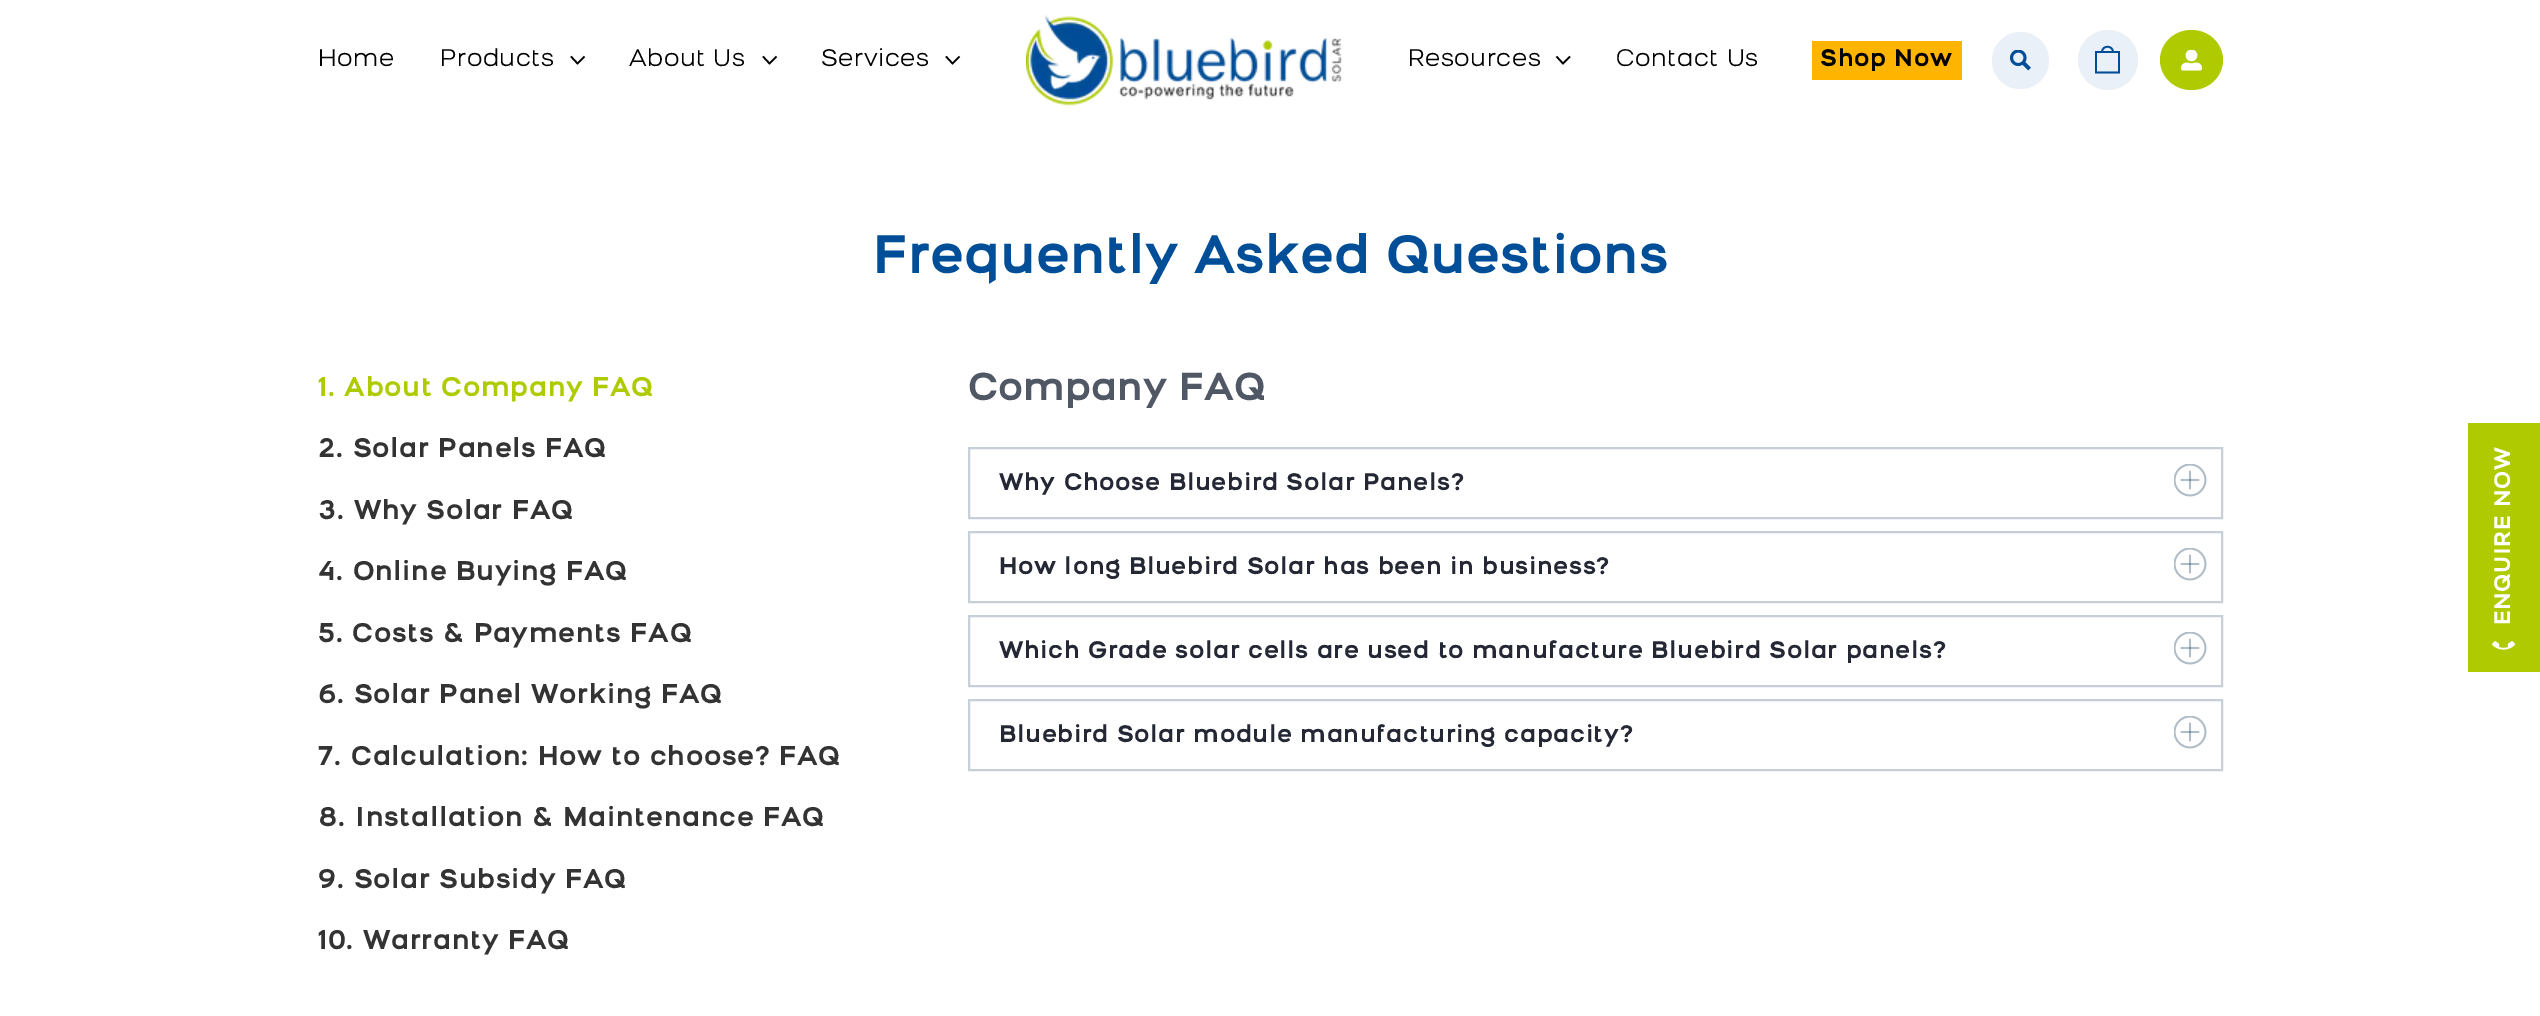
%!PS
<< /PageSize [2540 1016] >> setpagedevice
/mt/moveto load def
/li/lineto load def
/ct/curveto load def
/cp/closepath load def
/fl/fill load def
/st/stroke load def
/gs/gsave load def
/gr/grestore load def
/lw/setlinewidth load def
/co { dup -16 bitshift 255 div exch dup -8 bitshift 255 and 255 div exch 255 and 255 div setrgbcolor } def
/fn { [ exch dup neg 0 0 3 -1 roll 0 0 ] selectfont } def
/tx { co fn moveto show } def
/bx { co rectfill } def
/ci { newpath 0 360 arc closepath } def
/im { 5 dict begin { /h /w /y /x /name } { exch def } forall
  gsave x y translate w h scale
  w h 8 [w 0 0 h 0 0] name (r) file false 3 colorimage grestore end } def
0 1016 translate 1 -1 scale
4 setmiterlimit
0 0 2540 1016 16#FFFFFF bx
16#000000 co
1.6 lw
571 56.5 mt 577.5 63.5 li 584.5 56.5 li st
763 56.5 mt 769.5 63.5 li 776.5 56.5 li st
946 56.5 mt 952.5 63.5 li 959.5 56.5 li st
(media/1.raw) 1026 15 316 91 im
1556.5 56.5 mt 1563 63.5 li 1570 56.5 li st
1812 41 150 39 16#FFB400 bx
16#EAF0F7 co
2020.5 60.5 28.5 ci fl
(media/2.raw) 2010 50 21 21 im
2108 60 30 ci fl
16#004E97 co
1.7 lw
2096 52 mt 2119 52 li 2119 72.5 li 2096 72.5 li cp 2102 52 mt 2102 45 2113 45 2113 52 ct st
16#AFCB00 co
2191.5 30 mt 2209 30 2223 43.5 2223 60 ct 2223 76.5 2209 90 2191.5 90 ct 2174 90 2160 76.5 2160 60 ct 2160 43.5 2174 30 2191.5 30 ct cp fl
(media/3.raw) 2181 50 21 21 im
16#C7D0D8 co
2 lw
969 448 1253 70 rectstroke
(media/4.raw) 2174 464 33 33 im
969 532 1253 70 rectstroke
(media/4.raw) 2174 548 33 33 im
969 616 1253 70 rectstroke
(media/4.raw) 2174 632 33 33 im
969 700 1253 70 rectstroke
(media/4.raw) 2174 716 33 33 im
2468 423 72 249 16#AFCB00 bx
(media/5.raw) 2492 641 24 9 im
/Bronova-Regular 24 fn
16#000000 co
318 66 mt .6 0 (Home) ashow
440 66 mt .6 0 (Products) ashow
629 66 mt .6 0 (About Us) ashow
821 66 mt .6 0 (Services) ashow
1408 66 mt .6 0 (Resources) ashow
1616 66 mt .6 0 (Contact Us) ashow
/Bronova-Bold 24 fn
1820 66 mt .6 0 (Shop Now) ashow
(Frequently Asked Questions) 873 273 /Bronova-Bold 54 16#004E97 tx
/Bronova-Bold 27 fn
16#AFCB00 co
318 396 mt .6 0 (1. About Company FAQ) ashow
16#333333 co
318 457 mt .6 0 (2. Solar Panels FAQ) ashow
318 519 mt .6 0 (3. Why Solar FAQ) ashow
318 580 mt .6 0 (4. Online Buying FAQ) ashow
318 642 mt .6 0 (5. Costs & Payments FAQ) ashow
318 703 mt .6 0 (6. Solar Panel Working FAQ) ashow
318 765 mt .6 0 (7. Calculation: How to choose? FAQ) ashow
318 826 mt .6 0 (8. Installation & Maintenance FAQ) ashow
318 888 mt .6 0 (9. Solar Subsidy FAQ) ashow
318 949 mt .6 0 (10. Warranty FAQ) ashow
(Company FAQ) 968 400 /Bronova-Bold 39 16#515865 tx
/Bronova-Bold 24 fn
16#242734 co
999 490 mt .6 0 (Why Choose Bluebird Solar Panels?) ashow
999 574 mt .6 0 (How long Bluebird Solar has been in business?) ashow
999 658 mt .6 0 (Which Grade solar cells are used to manufacture Bluebird Solar panels?) ashow
999 742 mt .6 0 (Bluebird Solar module manufacturing capacity?) ashow
/Bronova-Bold 22.5 fn
16#FFFFFF co
gs 2510 625 translate -90 rotate 0 0 mt .6 0 (ENQUIRE NOW) ashow gr
showpage
